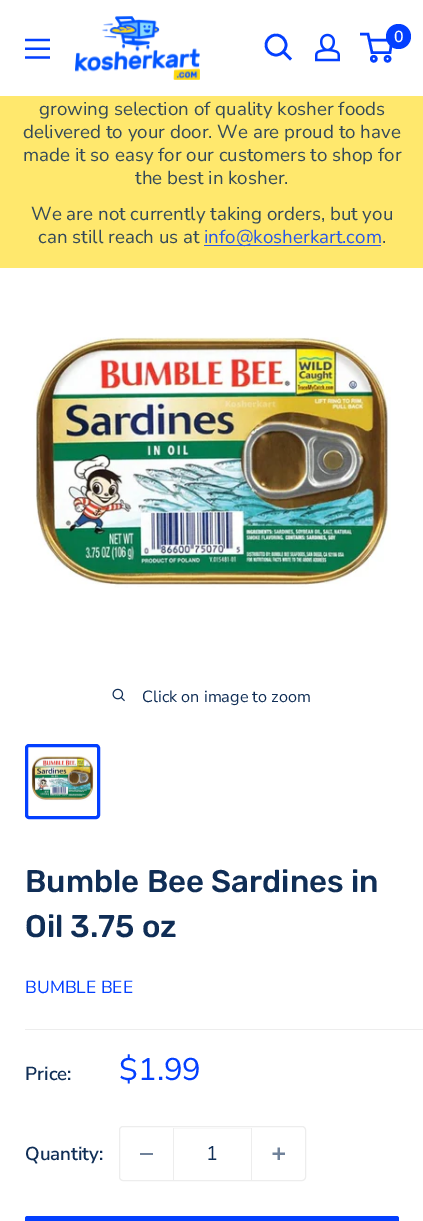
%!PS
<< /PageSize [423 1221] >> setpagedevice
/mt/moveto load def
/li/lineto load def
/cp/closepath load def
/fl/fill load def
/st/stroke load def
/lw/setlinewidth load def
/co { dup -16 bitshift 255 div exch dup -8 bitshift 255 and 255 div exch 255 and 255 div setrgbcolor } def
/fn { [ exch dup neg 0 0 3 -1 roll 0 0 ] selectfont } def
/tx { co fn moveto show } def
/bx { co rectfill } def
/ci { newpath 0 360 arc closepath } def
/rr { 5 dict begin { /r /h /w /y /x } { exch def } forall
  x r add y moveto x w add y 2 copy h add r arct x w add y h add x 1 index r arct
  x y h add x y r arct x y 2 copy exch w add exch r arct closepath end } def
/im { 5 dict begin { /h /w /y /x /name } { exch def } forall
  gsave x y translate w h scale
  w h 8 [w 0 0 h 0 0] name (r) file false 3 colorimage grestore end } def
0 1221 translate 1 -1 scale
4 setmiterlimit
0 0 423 1221 16#FFE86D bx
0 0 423 96 16#FFFFFF bx
(media/1.raw) 75 16 125 64 im
16#033FFF co
2.6 lw
2 setlinecap
290 58.5 mt 283.5 52 li st
0 setlinecap
276 45 10 ci st
(media/2.raw) 315 33 25 29 im
2.5 lw
373.8 58.8 2.5 ci st
387.5 58.8 2.5 ci st
369 40 mt 392 40 li 390 52.5 li 372 52.5 li 368 34 li 360 34 li st
398.5 36.5 12.5 ci fl
(media/3.raw) 25 38 25 21 im
204 245 177 1 16#2958E9 bx
0 268 423 591 16#FFFFFF bx
(media/4.raw) 33 337 358 251 im
(media/5.raw) 112 688 13 14 im
16#033FFF co
3 lw
26.5 745.5 72 72 2.5 rr st
(media/6.raw) 30 756 64 45 im
16#FFFFFF co
0 859 mt 0 860 li 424 860 li 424 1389 li 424 859 li cp fl
0 860 423 361 16#FFFFFF bx
25 1029 398 1 16#EDEDED bx
1 lw
119.5 1126.5 186 54 3.5 rr st
140 1153 13 2 16#70829A bx
174 1128 77 1 16#F8F8F8 bx
251 1128 1 52 16#EDEDED bx
173 1128 1 52 16#EDEDED bx
(media/7.raw) 272 1147 13 13 im
16#033FFF co
25 1216 374 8 2.5 rr fl
(0) 394 42 /NunitoSans-SemiBold 16 16#FFFFFF tx
(growing selection of quality kosher foods) 39 115 /NunitoSans-ExtraLight 18.75 16#344A59 tx
(delivered to your door. We are proud to have) 23 138 /NunitoSans-ExtraLight 18.75 16#344A59 tx
(made it so easy for our customers to shop for) 23 161 /NunitoSans-ExtraLight 18.75 16#344A59 tx
(the best in kosher.) 135 184 /NunitoSans-ExtraLight 18.75 16#344A59 tx
(We are not currently taking orders, but you) 31 220 /NunitoSans-ExtraLight 18.75 16#344A59 tx
(can still reach us at) 38 243 /NunitoSans-ExtraLight 18.75 16#344A59 tx
(info@kosherkart.com) 204 243 /NunitoSans-ExtraLight 18.75 16#2958E9 tx
(.) 382 243 /NunitoSans-ExtraLight 18.75 16#344A59 tx
(Click on image to zoom) 142 702 /NunitoSans-ExtraLight 16.25 16#102E56 tx
(Bumble Bee Sardines in) 25 892 /Rubik-Medium 31.25 16#102E56 tx
(Oil 3.75 oz) 25 937 /Rubik-Medium 31.25 16#102E56 tx
(BUMBLE BEE) 25 993 /NunitoSans-ExtraLight 17.5 16#033FFF tx
(Price:) 25 1080 /NunitoSans-SemiBold 18.75 16#102E56 tx
($1.99) 119 1080 /NunitoSans-ExtraLight 31.25 16#033FFF tx
(Quantity:) 25 1160 /NunitoSans-SemiBold 18.75 16#102E56 tx
(1) 206 1160 /NunitoSans-ExtraLight 20 16#102E56 tx
showpage
